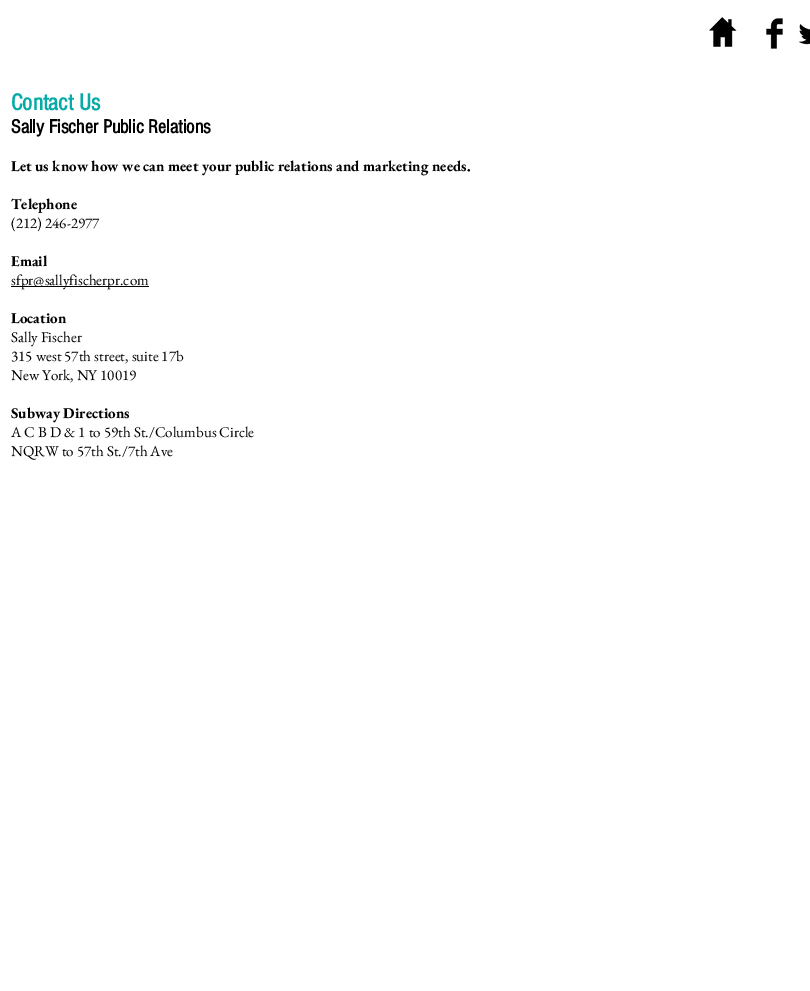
%!PS
<< /PageSize [810 991] >> setpagedevice
/co { dup -16 bitshift 255 div exch dup -8 bitshift 255 and 255 div exch 255 and 255 div setrgbcolor } def
/fn { [ exch dup neg 0 0 3 -1 roll 0 0 ] selectfont } def
/tx { co fn moveto show } def
/bx { co rectfill } def
/im { 5 dict begin { /h /w /y /x /name } { exch def } forall
  gsave x y translate w h scale
  w h 8 [w 0 0 h 0 0] name (r) file false 3 colorimage grestore end } def
0 991 translate 1 -1 scale
4 setmiterlimit
0 0 810 991 16#FFFFFF bx
(media/1.raw) 709 17 28 30 im
(media/2.raw) 766 18 17 31 im
(media/3.raw) 798 24 12 21 im
11 286 138 1 16#000000 bx
(Contact Us) 11 110 /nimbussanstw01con-Bold 24 16#06AAA7 tx
(Sally Fischer Public Relations) 11 133 /nimbussanstw01con-Bold 20 16#000000 tx
(Let us know how we can meet your public relations and marketing needs.) 11 171 /EBGaramond-Bold 15 16#000000 tx
(Telephone) 11 209 /EBGaramond-Bold 15 16#000000 tx
(\(212\) 246-2977) 11 228 /EBGaramond-Regular 15 16#000000 tx
(Email) 11 266 /EBGaramond-Bold 15 16#000000 tx
(sfpr@sallyfischerpr.com) 11 285 /EBGaramond-Regular 15 16#000000 tx
(Location) 11 323 /EBGaramond-Bold 15 16#000000 tx
(Sally Fischer) 11 342 /EBGaramond-Regular 15 16#000000 tx
(315 west 57th street, suite 17b) 11 361 /EBGaramond-Regular 15 16#000000 tx
(New York, NY 10019) 11 380 /EBGaramond-Regular 15 16#000000 tx
(Subway Directions) 11 418 /EBGaramond-Bold 15 16#000000 tx
(A C B D & 1 to 59th St./Columbus Circle) 11 437 /EBGaramond-Regular 15 16#000000 tx
(NQRW to 57th St./7th Ave) 11 456 /EBGaramond-Regular 15 16#000000 tx
showpage
